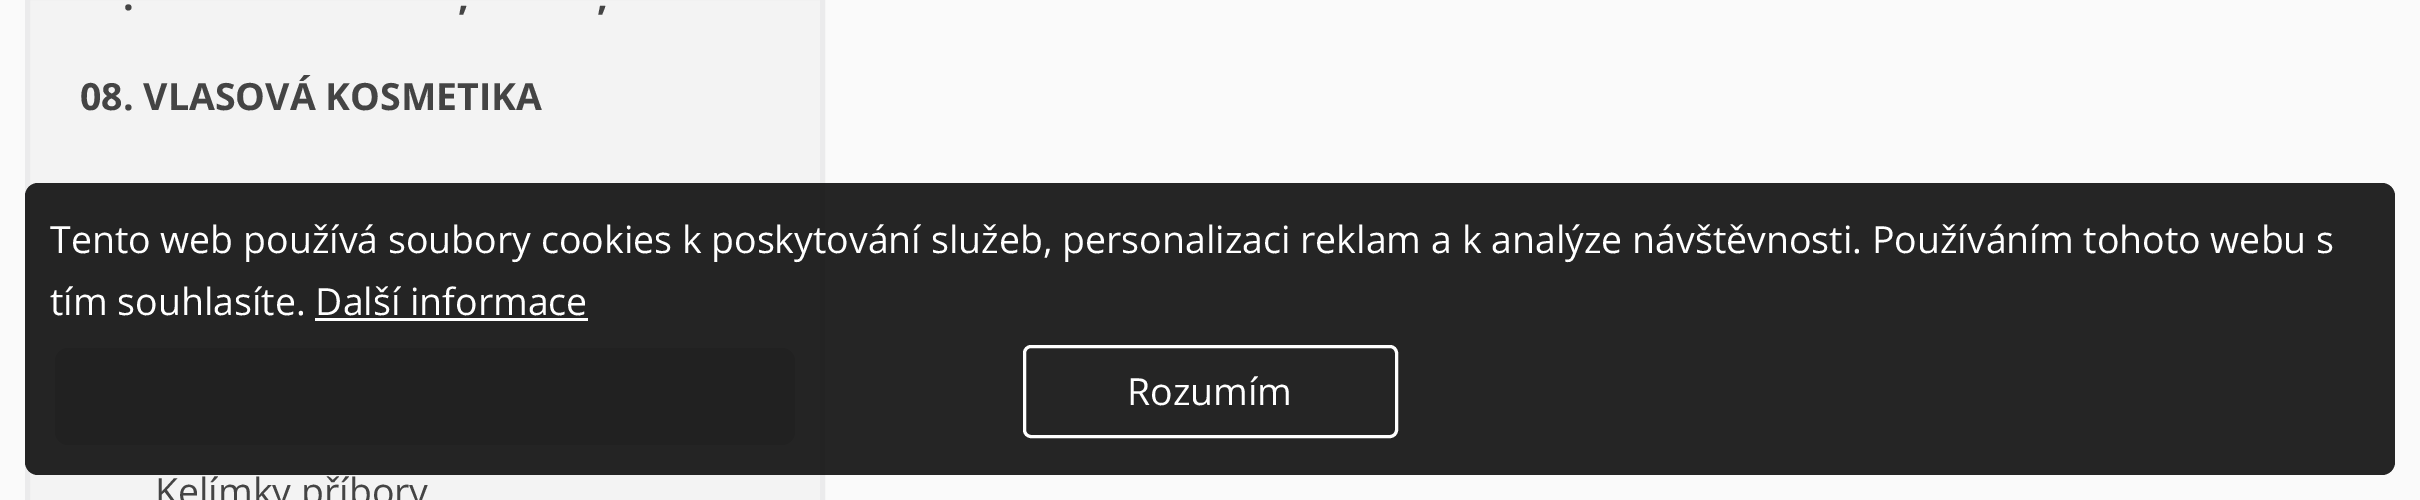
%!PS
<< /PageSize [2420 500] /PageUsesTransparency true >> setpagedevice
/mt/moveto load def
/li/lineto load def
/cp/closepath load def
/fl/fill load def
/st/stroke load def
/gs/gsave load def
/gr/grestore load def
/lw/setlinewidth load def
/co { dup -16 bitshift 255 div exch dup -8 bitshift 255 and 255 div exch 255 and 255 div setrgbcolor } def
/fn { [ exch dup neg 0 0 3 -1 roll 0 0 ] selectfont } def
/tx { co fn moveto show } def
/bx { co rectfill } def
/al { dup .setfillconstantalpha .setstrokeconstantalpha } def
/rr { 5 dict begin { /r /h /w /y /x } { exch def } forall
  x r add y moveto x w add y 2 copy h add r arct x w add y h add x 1 index r arct
  x y h add x y r arct x y 2 copy exch w add exch r arct closepath end } def
0 .pushpdf14devicefilter
0 500 translate 1 -1 scale
4 setmiterlimit
0 0 2420 500 16#FAFAFA bx
16#F3F3F3 co
27.5 -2.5 mt 822.5 -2.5 li 822.5 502.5 li 27.5 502.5 li cp gs fl gr
16#EBEBEC co
5 lw
st
16#DDDDDD co
55 348 740 97 13 rr fl
0.85 al
16#000000 co
25 183 2370 292 13 rr fl
1 al
315 318 273 3 16#FFFFFF bx
3 lw
1024.5 346.5 372 90 6.5 rr st
(.) 123 10 /OpenSans-Bold 37.5 16#444444 tx
(,) 458 10 /OpenSans-Bold 37.5 16#444444 tx
(,) 597 10 /OpenSans-Bold 37.5 16#444444 tx
(08. VLASOVÁ KOSMETIKA) 80 110 /OpenSans-Bold 37.5 16#444444 tx
(Kelímky,příbory) 155 505 /OpenSans-Regular 37.5 16#444444 tx
(Tento web používá soubory cookies k poskytování služeb, personalizaci reklam a k analýze návštěvnosti. Používáním tohoto webu s) 50 253 /OpenSans-Regular 37.5 16#FFFFFF tx
(tím souhlasíte. Další informace) 50 315 /OpenSans-Regular 37.5 16#FFFFFF tx
(Rozumím) 1127 405 /OpenSans-Regular 37.5 16#FFFFFF tx
.poppdf14devicefilter showpage
